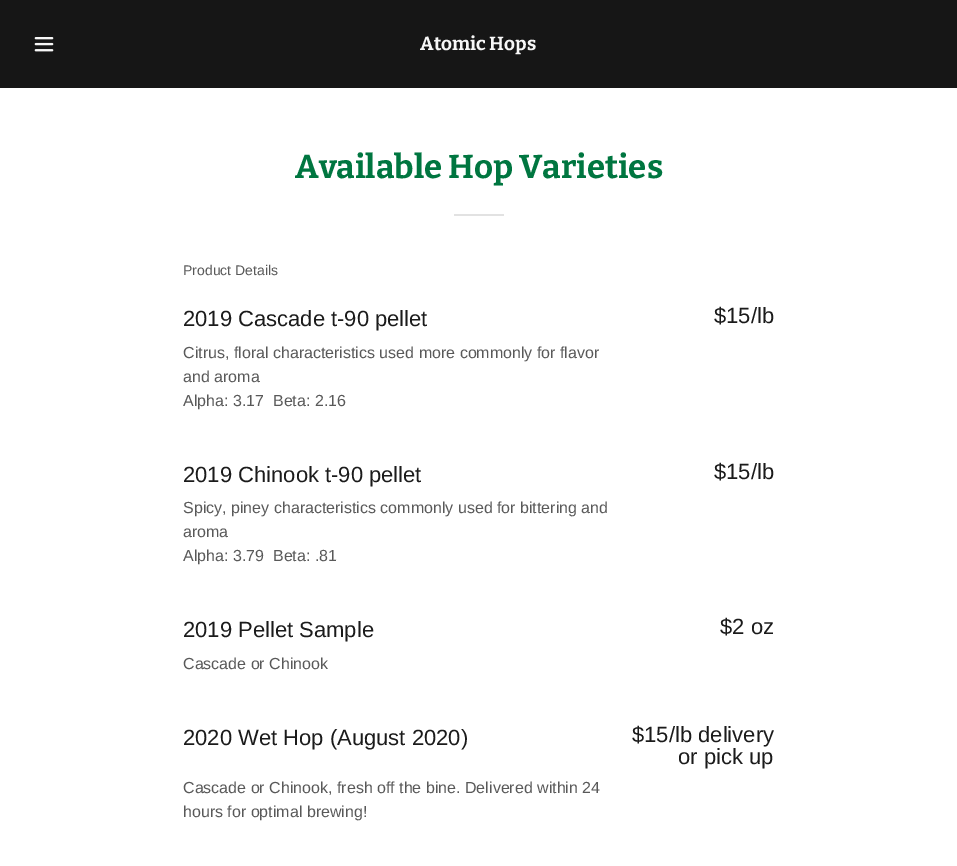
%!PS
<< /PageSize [957 866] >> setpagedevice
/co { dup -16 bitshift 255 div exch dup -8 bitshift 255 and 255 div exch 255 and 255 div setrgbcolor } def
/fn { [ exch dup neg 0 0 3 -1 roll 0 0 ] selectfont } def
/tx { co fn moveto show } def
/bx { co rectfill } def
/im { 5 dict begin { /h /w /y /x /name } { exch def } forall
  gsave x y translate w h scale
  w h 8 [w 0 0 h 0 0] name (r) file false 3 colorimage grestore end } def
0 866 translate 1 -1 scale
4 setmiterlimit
0 0 957 866 16#161616 bx
(media/1.raw) 34 37 20 15 im
0 88 957 778 16#FFFFFF bx
454 214 50 2 16#E2E2E2 bx
(Atomic Hops) 420 50 /Bitter-Thin 19 16#F7F7F7 tx
(Available Hop Varieties) 295 178 /Bitter-Thin 33 16#007640 tx
(Product Details) 183 275 /LiberationSans-Regular 14 16#595959 tx
(2019 Cascade t-90 pellet) 183 326 /LiberationSans-Regular 22 16#1B1B1B tx
($15/lb) 714 323 /LiberationSans-Regular 22 16#1B1B1B tx
(Citrus, floral characteristics used more commonly for flavor) 183 358 /LiberationSans-Regular 16 16#595959 tx
(and aroma) 183 382 /LiberationSans-Regular 16 16#595959 tx
(Alpha: 3.17  Beta: 2.16) 183 406 /LiberationSans-Regular 16 16#595959 tx
(2019 Chinook t-90 pellet) 183 482 /LiberationSans-Regular 22 16#1B1B1B tx
($15/lb) 714 479 /LiberationSans-Regular 22 16#1B1B1B tx
(Spicy, piney characteristics commonly used for bittering and) 183 513 /LiberationSans-Regular 16 16#595959 tx
(aroma) 183 537 /LiberationSans-Regular 16 16#595959 tx
(Alpha: 3.79  Beta: .81) 183 561 /LiberationSans-Regular 16 16#595959 tx
(2019 Pellet Sample) 183 637 /LiberationSans-Regular 22 16#1B1B1B tx
($2 oz) 720 634 /LiberationSans-Regular 22 16#1B1B1B tx
(Cascade or Chinook) 183 669 /LiberationSans-Regular 16 16#595959 tx
(2020 Wet Hop \(August 2020\)) 183 745 /LiberationSans-Regular 22 16#1B1B1B tx
($15/lb delivery) 632 742 /LiberationSans-Regular 22 16#1B1B1B tx
(or pick up) 678 764 /LiberationSans-Regular 22 16#1B1B1B tx
(Cascade or Chinook, fresh off the bine. Delivered within 24) 183 793 /LiberationSans-Regular 16 16#595959 tx
(hours for optimal brewing!) 183 817 /LiberationSans-Regular 16 16#595959 tx
showpage
